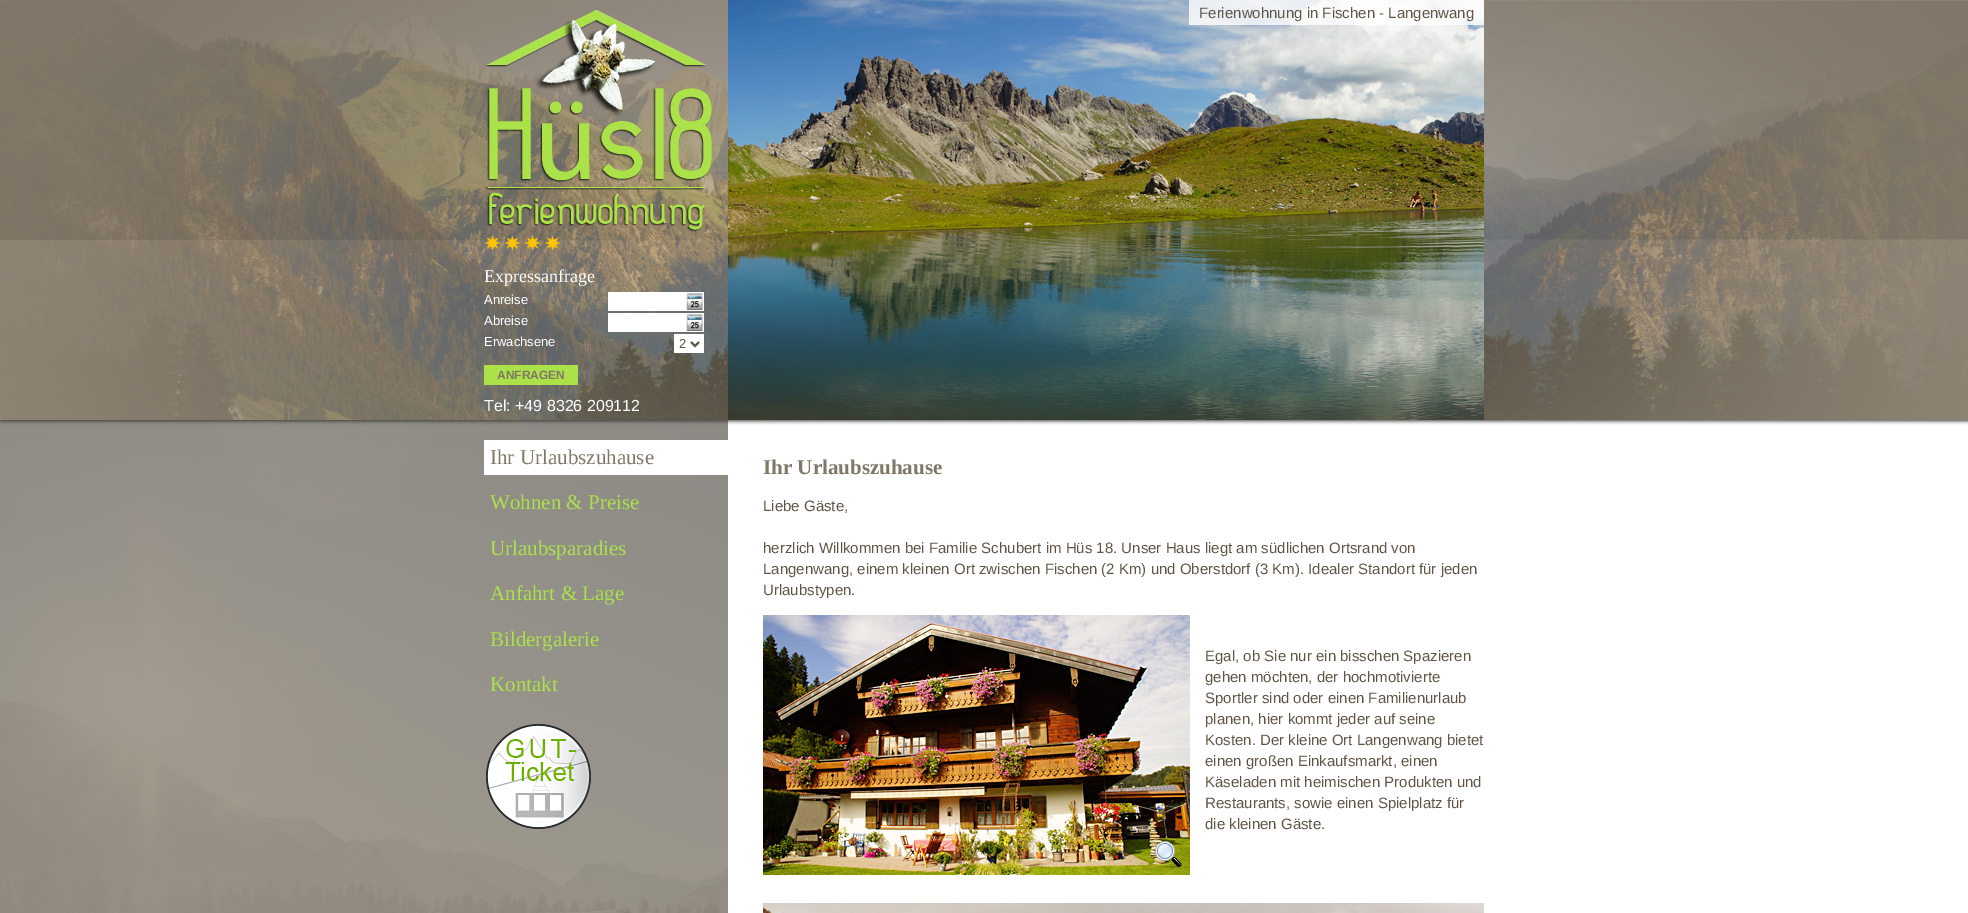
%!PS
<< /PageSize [1968 913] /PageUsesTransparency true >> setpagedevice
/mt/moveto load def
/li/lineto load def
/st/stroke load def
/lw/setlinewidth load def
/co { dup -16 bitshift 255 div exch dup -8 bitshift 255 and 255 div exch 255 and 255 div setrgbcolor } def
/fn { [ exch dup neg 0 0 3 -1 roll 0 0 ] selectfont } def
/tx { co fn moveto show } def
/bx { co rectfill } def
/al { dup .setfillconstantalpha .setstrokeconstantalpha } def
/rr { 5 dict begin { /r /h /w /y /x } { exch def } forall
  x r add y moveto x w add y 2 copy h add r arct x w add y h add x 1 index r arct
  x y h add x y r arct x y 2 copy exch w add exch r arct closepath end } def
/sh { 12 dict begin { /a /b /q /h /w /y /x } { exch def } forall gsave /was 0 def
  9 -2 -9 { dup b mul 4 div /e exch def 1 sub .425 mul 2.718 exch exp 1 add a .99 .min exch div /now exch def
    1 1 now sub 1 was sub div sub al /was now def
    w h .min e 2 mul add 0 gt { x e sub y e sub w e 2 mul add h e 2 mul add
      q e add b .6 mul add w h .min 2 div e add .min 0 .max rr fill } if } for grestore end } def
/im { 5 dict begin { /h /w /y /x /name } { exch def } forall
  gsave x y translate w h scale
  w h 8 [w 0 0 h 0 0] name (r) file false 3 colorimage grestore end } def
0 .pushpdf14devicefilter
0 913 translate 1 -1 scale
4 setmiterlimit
0 0 1968 913 16#FFFFFF bx
(media/1.raw) 0 420 728 493 im
16#333333 co
1 1 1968 420 0 2 1 sh
(media/2.raw) 0 0 1968 420 im
(media/3.raw) 485 10 227 222 im
(media/4.raw) 728 0 756 420 im
0.8 al
1189 0 295 25 16#FFFFFF bx
1 al
(media/5.raw) 484 235 77 16 im
608 292 96 19 16#FFFFFF bx
(media/6.raw) 686 293 17 17 im
608 313 96 19 16#FFFFFF bx
(media/6.raw) 686 314 17 17 im
674 334 30 19 16#FFFFFF bx
16#605545 co
2 lw
691 342 mt 695 346 li 699 342 li st
484 365 94 20 16#ABE24A bx
484 440 244 35 16#FFFFFF bx
(media/7.raw) 486 724 105 105 im
(media/8.raw) 763 615 427 260 im
(media/9.raw) 1155 841 27 27 im
(media/10.raw) 763 903 721 10 im
(Ferienwohnung in Fischen - Langenwang) 1199 18 /LiberationSans-Regular 15 16#605545 tx
(Expressanfrage) 484 282 /LiberationSerif-Regular 18 16#FFFFFF tx
(Anreise) 484 304 /LiberationSans-Regular 13 16#FFFFFF tx
(Abreise) 484 325 /LiberationSans-Regular 13 16#FFFFFF tx
(Erwachsene) 484 346 /LiberationSans-Regular 13 16#FFFFFF tx
(2) 679 348 /LiberationSans-Regular 13 16#605545 tx
(ANFRAGEN) 497 379 /LiberationSans-Bold 12 16#807767 tx
(Tel: +49 8326 209112) 484 411 /LiberationSans-Regular 16 16#FFFFFF tx
(Ihr Urlaubszuhause) 490 464 /LiberationSerif-Regular 21 16#807767 tx
(Wohnen & Preise) 490 509 /LiberationSerif-Regular 21 16#ABE24A tx
(Urlaubsparadies) 490 555 /LiberationSerif-Regular 21 16#ABE24A tx
(Anfahrt & Lage) 490 600 /LiberationSerif-Regular 21 16#ABE24A tx
(Bildergalerie) 490 646 /LiberationSerif-Regular 21 16#ABE24A tx
(Kontakt) 490 691 /LiberationSerif-Regular 21 16#ABE24A tx
(Ihr Urlaubszuhause) 763 474 /LiberationSerif-Bold 21 16#807767 tx
(Liebe Gäste,) 763 511 /LiberationSans-Regular 15 16#605545 tx
(herzlich Willkommen bei Familie Schubert im Hüs 18. Unser Haus liegt am südlichen Ortsrand von) 763 553 /LiberationSans-Regular 15 16#605545 tx
(Langenwang, einem kleinen Ort zwischen Fischen \(2 Km\) und Oberstdorf \(3 Km\). Idealer Standort für jeden) 763 574 /LiberationSans-Regular 15 16#605545 tx
(Urlaubstypen.) 763 595 /LiberationSans-Regular 15 16#605545 tx
(Egal, ob Sie nur ein bisschen Spazieren) 1205 661 /LiberationSans-Regular 15 16#605545 tx
(gehen möchten, der hochmotivierte) 1205 682 /LiberationSans-Regular 15 16#605545 tx
(Sportler sind oder einen Familienurlaub) 1205 703 /LiberationSans-Regular 15 16#605545 tx
(planen, hier kommt jeder auf seine) 1205 724 /LiberationSans-Regular 15 16#605545 tx
(Kosten. Der kleine Ort Langenwang bietet) 1205 745 /LiberationSans-Regular 15 16#605545 tx
(einen großen Einkaufsmarkt, einen) 1205 766 /LiberationSans-Regular 15 16#605545 tx
(Käseladen mit heimischen Produkten und) 1205 787 /LiberationSans-Regular 15 16#605545 tx
(Restaurants, sowie einen Spielplatz für) 1205 808 /LiberationSans-Regular 15 16#605545 tx
(die kleinen Gäste.) 1205 829 /LiberationSans-Regular 15 16#605545 tx
.poppdf14devicefilter showpage
